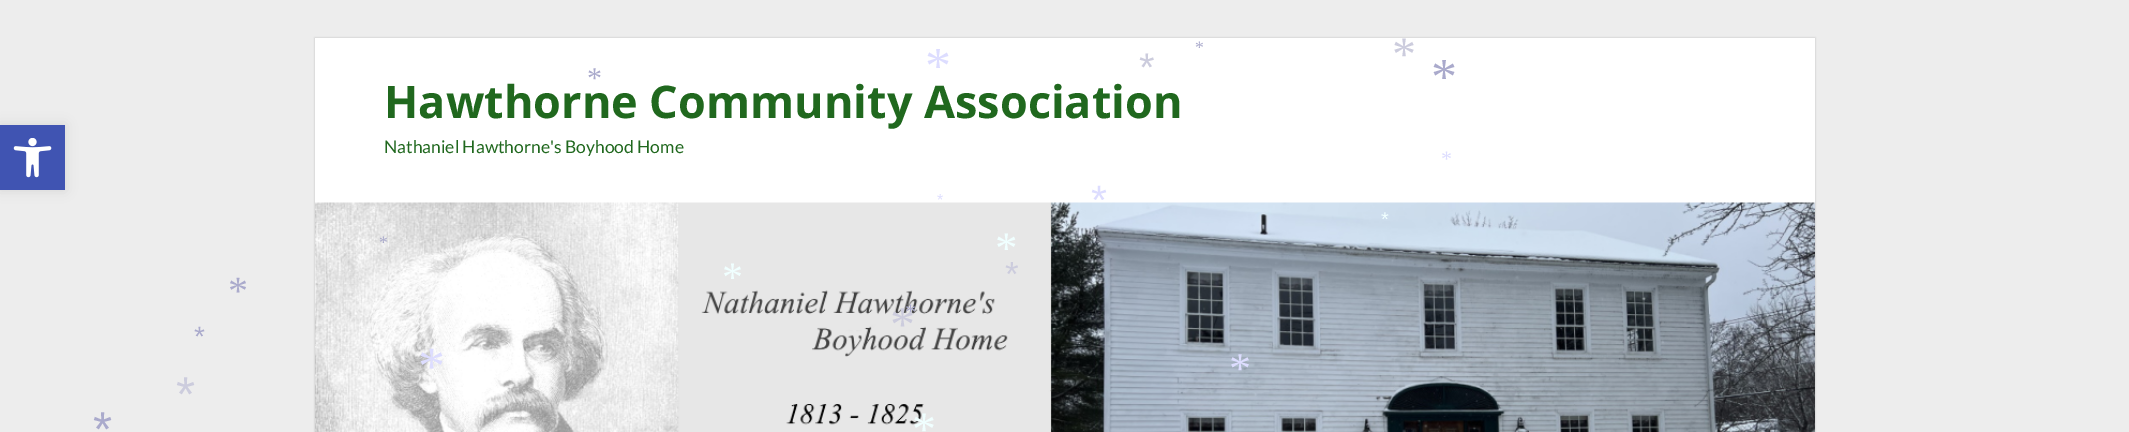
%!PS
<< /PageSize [2129 432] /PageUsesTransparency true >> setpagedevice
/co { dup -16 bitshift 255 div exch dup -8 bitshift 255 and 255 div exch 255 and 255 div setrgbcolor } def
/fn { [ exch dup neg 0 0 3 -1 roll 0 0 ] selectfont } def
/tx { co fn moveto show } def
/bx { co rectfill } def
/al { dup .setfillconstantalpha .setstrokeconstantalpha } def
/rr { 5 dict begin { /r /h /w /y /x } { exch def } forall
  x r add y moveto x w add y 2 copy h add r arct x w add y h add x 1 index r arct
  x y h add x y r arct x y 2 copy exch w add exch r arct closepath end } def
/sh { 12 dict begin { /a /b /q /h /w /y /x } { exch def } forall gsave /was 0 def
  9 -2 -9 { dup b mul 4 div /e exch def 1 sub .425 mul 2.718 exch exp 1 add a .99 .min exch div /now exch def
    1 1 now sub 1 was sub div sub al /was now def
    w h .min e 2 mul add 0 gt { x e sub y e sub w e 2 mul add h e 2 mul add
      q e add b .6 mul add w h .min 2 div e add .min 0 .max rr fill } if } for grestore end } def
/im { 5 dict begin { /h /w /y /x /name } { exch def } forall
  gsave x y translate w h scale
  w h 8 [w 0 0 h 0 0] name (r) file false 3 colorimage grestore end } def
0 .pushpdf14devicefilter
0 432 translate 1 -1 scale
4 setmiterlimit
0 0 2129 432 16#EDEDED bx
16#000000 co
0 125 65 65 0 6 .1 sh
0 125 65 65 16#4054B2 bx
(media/1.raw) 13 138 39 40 im
16#BBBBBB co
315 38 1500 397 0 1 1 sh
315 38 1500 165 16#FFFFFF bx
(media/2.raw) 315 202 1500 230 im
(*) 1195 53 /LiberationSerif-Regular 17.5 16#AAAACC tx
(*) 1392 70 /LiberationSerif-Regular 48 16#CCCCDD tx
(*) 587 88 /LiberationSerif-Regular 30 16#AAAACC tx
(*) 925 83 /LiberationSerif-Regular 52 16#DDDDFF tx
(*) 1139 81 /LiberationSans-Regular 40 16#CCCCDD tx
(*) 1431 94 /LiberationSerif-Regular 52 16#AAAACC tx
(*) 1441 166 /LiberationSerif-Regular 22 16#DDDDFF tx
(*) 937 205 /LiberationSans-Regular 16 16#DDDDFF tx
(*) 1091 214 /LiberationSans-Regular 41 16#DDDDFF tx
(*) 1381 226 /LiberationSans-Regular 20 16#F0FFFF tx
(*) 379 248 /LiberationSerif-Regular 17.5 16#AAAACC tx
(*) 995 263 /LiberationSerif-Regular 45 16#F0FFFF tx
(*) 722 291 /LiberationSerif-Regular 42 16#F0FFFF tx
(*) 1005 286 /LiberationSans-Regular 35 16#CCCCDD tx
(*) 228 304 /LiberationSerif-Regular 40 16#AAAACC tx
(*) 905 319 /LiberationSerif-Regular 22 16#AAAACC tx
(*) 890 341 /LiberationSerif-Regular 50 16#CCCCDD tx
(*) 194 346 /LiberationSans-Regular 28 16#AAAACC tx
(*) 418 384 /LiberationSerif-Regular 54 16#DDDDFF tx
(*) 1229 383 /LiberationSerif-Regular 44 16#DDDDFF tx
(*) 176 411 /LiberationSans-Regular 49 16#CCCCDD tx
(*) 93 446 /LiberationSans-Regular 49 16#AAAACC tx
(*) 912 445 /LiberationSerif-Regular 48 16#F0FFFF tx
(Hawthorne Community Association) 384 118 /OpenSans-Bold 45 16#20681E tx
(Nathaniel Hawthorne's Boyhood Home) 384 153 /Lato-Regular 17.5 16#20681E tx
.poppdf14devicefilter showpage
